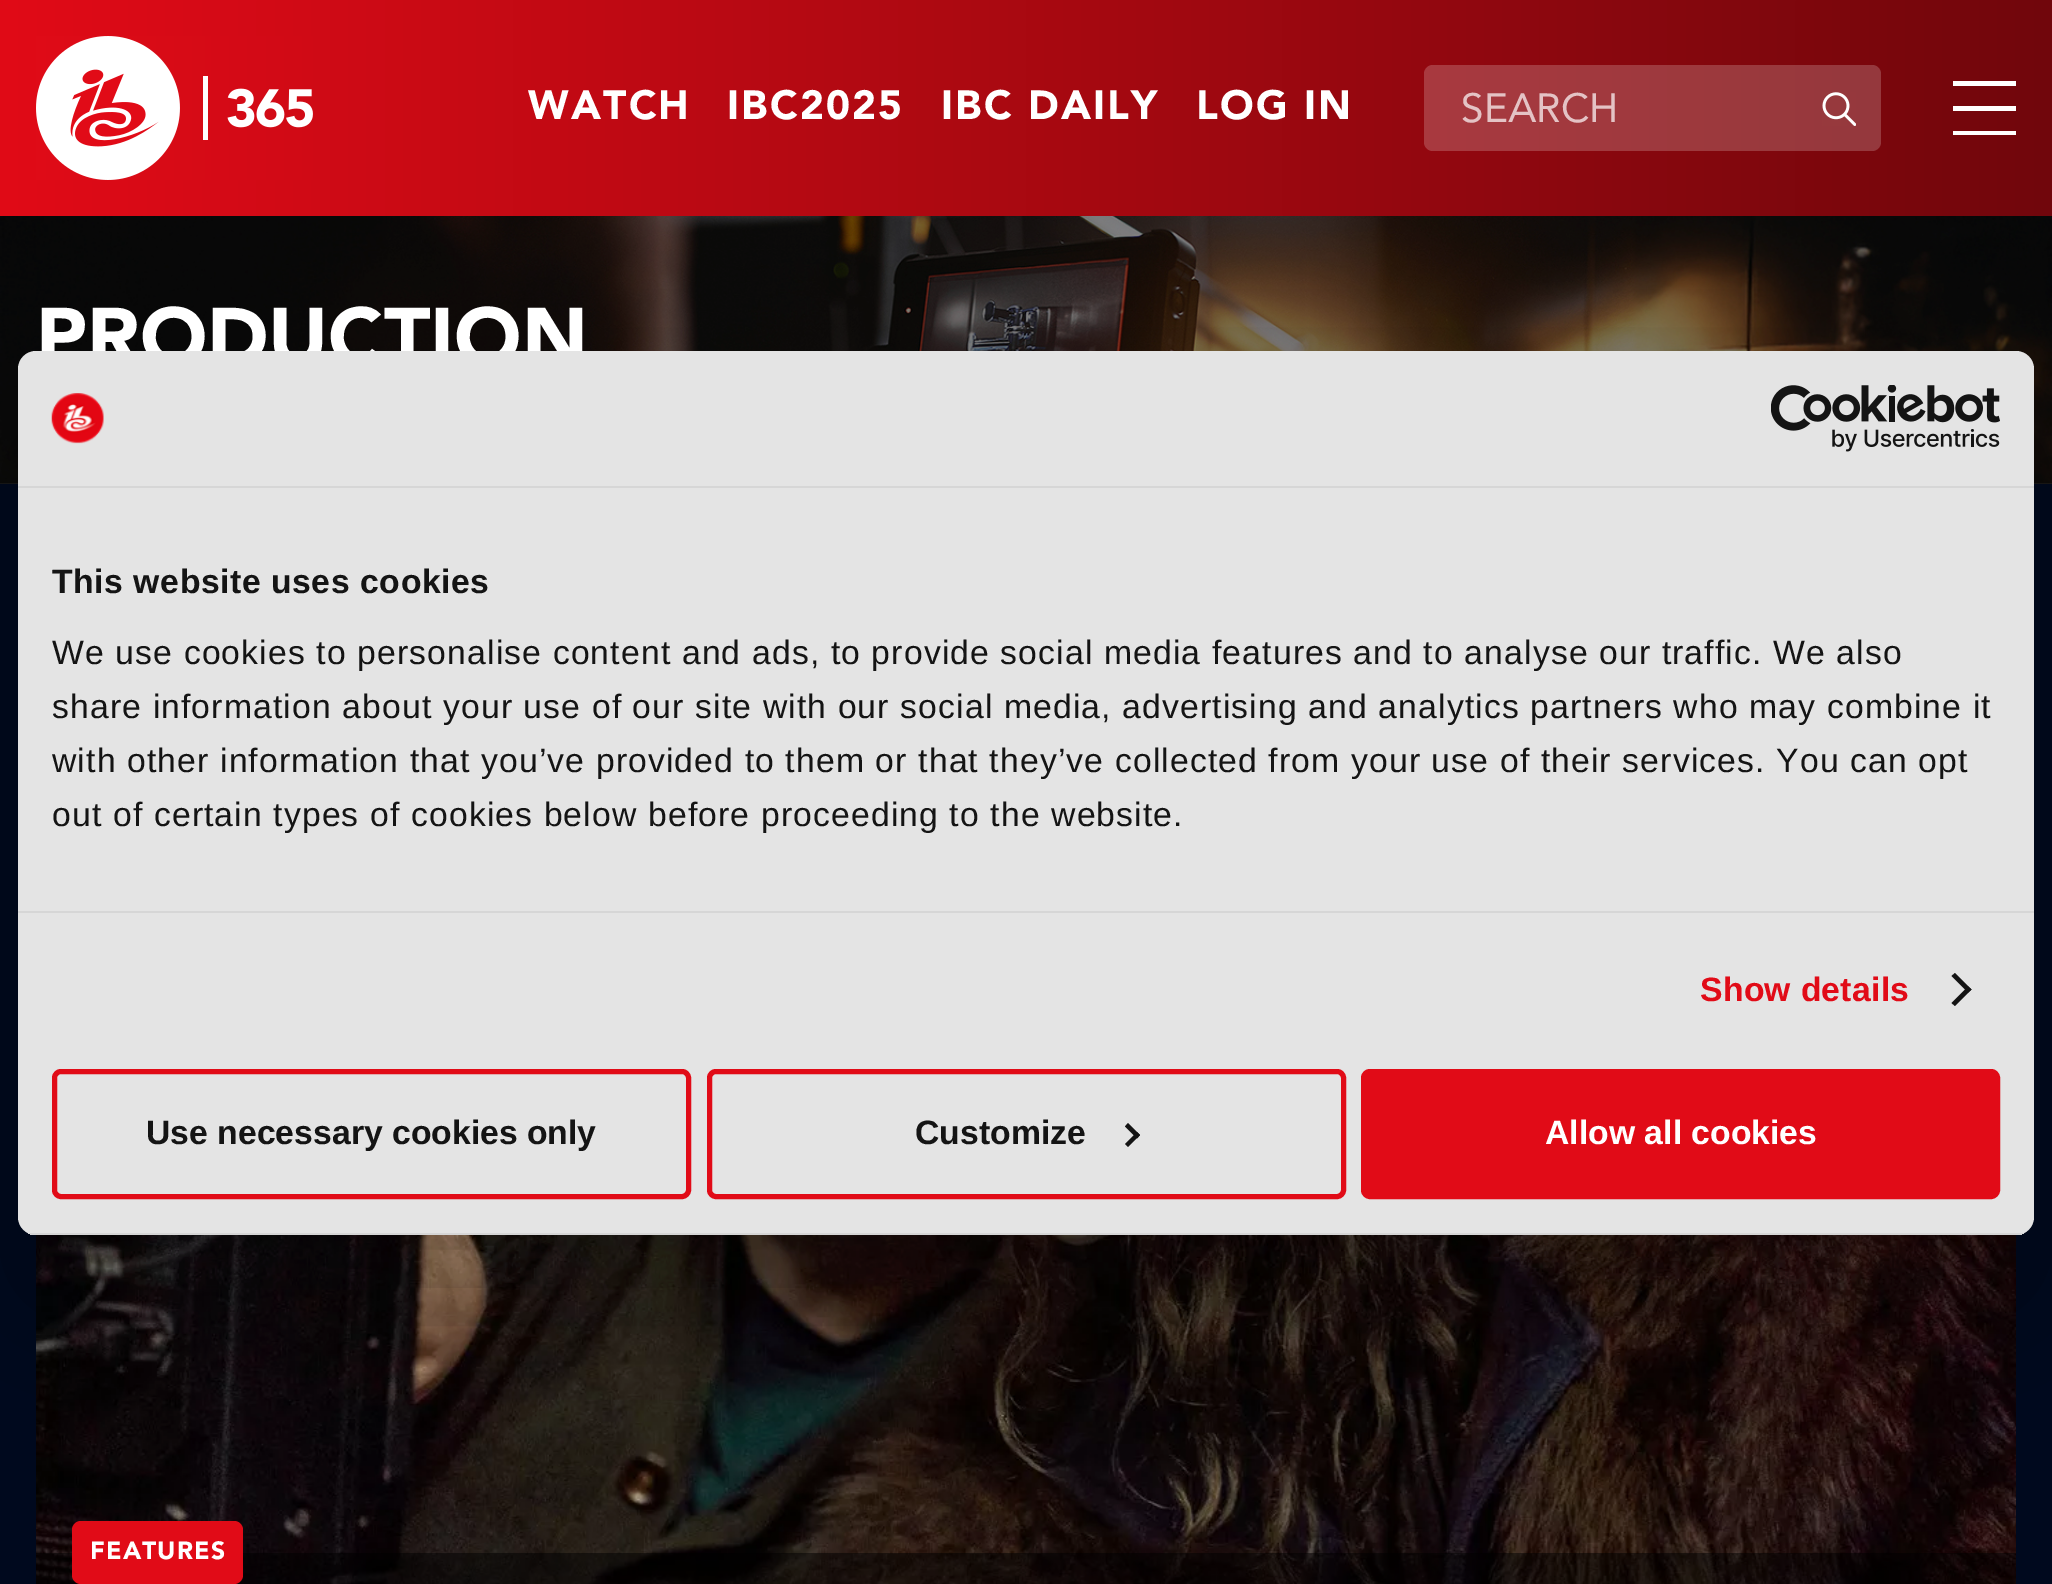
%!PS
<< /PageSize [2052 1584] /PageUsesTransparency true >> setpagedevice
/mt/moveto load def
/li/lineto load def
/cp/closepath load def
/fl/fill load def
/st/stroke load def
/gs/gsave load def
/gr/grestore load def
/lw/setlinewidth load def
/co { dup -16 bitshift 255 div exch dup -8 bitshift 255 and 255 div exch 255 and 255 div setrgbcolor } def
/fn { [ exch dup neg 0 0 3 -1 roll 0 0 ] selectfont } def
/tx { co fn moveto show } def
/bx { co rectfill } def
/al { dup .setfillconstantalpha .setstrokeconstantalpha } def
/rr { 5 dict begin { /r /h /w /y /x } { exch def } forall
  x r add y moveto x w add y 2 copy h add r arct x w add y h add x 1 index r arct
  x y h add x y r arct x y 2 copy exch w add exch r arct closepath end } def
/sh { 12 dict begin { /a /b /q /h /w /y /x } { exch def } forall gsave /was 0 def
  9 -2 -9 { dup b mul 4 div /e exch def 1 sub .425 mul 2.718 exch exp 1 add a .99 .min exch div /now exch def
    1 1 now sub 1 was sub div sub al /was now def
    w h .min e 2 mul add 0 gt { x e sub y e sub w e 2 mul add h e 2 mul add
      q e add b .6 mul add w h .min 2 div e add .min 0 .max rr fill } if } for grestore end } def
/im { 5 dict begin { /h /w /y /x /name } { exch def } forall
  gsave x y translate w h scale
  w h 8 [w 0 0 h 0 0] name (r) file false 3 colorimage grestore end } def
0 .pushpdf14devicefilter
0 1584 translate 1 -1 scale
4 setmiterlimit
0 0 2052 1584 16#00091E bx
gs 0 0 mt 2052 0 li 2052 216 li 0 216 li cp clip newpath
<< /ShadingType 2 /ColorSpace /DeviceRGB /Coords [2052 108 0 108] /Extend [true true] /Function << /FunctionType 2 /Domain [0 1] /C0 [.443 .024 .047] /C1 [.882 .043 .09] /N 1 >> >> shfill gr
(media/1.raw) 36 36 277 144 im
0.2 al
16#FFFFFF co
1424 65 457 86 9 rr fl
1 al
(media/2.raw) 1822 92 34 34 im
1953 106 63 5 16#FFFFFF bx
1953 81 63 5 16#FFFFFF bx
1953 131 63 4 16#FFFFFF bx
(media/3.raw) 0 216 2052 268 im
(media/4.raw) 36 1235 1980 349 im
0.5 al
36 1553 1980 31 16#000000 bx
1 al
16#E10B17 co
72 1521 171 63 9 rr fl
16#000000 co
18 423 2016 884 18 76.5 .3 sh
/Avenir-Black 40.5 fn
16#FFFFFF co
528 119 mt 2.25 0 (WATCH) ashow
727 119 mt 2.25 0 (IBC2025) ashow
941 119 mt 2.25 0 (IBC DAILY) ashow
1196 119 mt 2.25 0 (LOG IN) ashow
(SEARCH) 1461 122 /Avenir-Regular 40.5 16#E4C3C5 tx
(PRODUCTION) 36 365 /Avenir-Black 81 16#FFFFFF tx
/Avenir-Black 24.75 fn
90 1559 mt 1.12 0 (FEATURES) ashow
16#E4E4E4 co
18 351 2016 884 18 rr fl
18 486 2016 2 16#D6D6D6 bx
(media/5.raw) 51 393 53 51 im
(media/6.raw) 1771 385 229 67 im
18 911 2016 2 16#D6D6D6 bx
/LiberationSans-Bold 33.75 fn
16#141414 co
52 593 mt .55 0 (This website uses cookies) ashow
/LiberationSans-Regular 33.75 fn
52 664 mt 1.12 0 (We use cookies to personalise content and ads, to provide social media features and to analyse our traffic. We also) ashow
52 718 mt 1.12 0 (share information about your use of our site with our social media, advertising and analytics partners who may combine it) ashow
52 772 mt 1.12 0 (with other information that you’ve provided to them or that they’ve collected from your use of their services. You can opt) ashow
52 826 mt 1.12 0 (out of certain types of cookies below before proceeding to the website.) ashow
/LiberationSans-Bold 33.75 fn
16#E10B17 co
1700 1001 mt .25 0 (Show details) ashow
16#141414 co
1955 973 mt 1971.5 989.5 li 1968 992.5 li 1951.5 976 li cp fl
1968 986.5 mt 1971.5 989.5 li 1955 1006 li 1951.5 1003 li cp fl
gs
18 351 2016 884 18 rr clip newpath
28 1233 1996 2 16#D6D6D6 bx
gr
16#E10B17 co
5 lw
54.5 1071.5 634 125 6.5 rr st
(Use necessary cookies only) 146 1144 /LiberationSans-Bold 33.75 16#141414 tx
16#E10B17 co
709.5 1071.5 634 125 6.5 rr st
(Customize) 915 1144 /LiberationSans-Bold 33.75 16#141414 tx
1128 1123 mt 1140 1135 li 1137 1138.5 li 1125 1126.5 li cp fl
1137 1132 mt 1140 1135 li 1128 1147 li 1125 1144 li cp fl
16#E10B17 co
1363.5 1071.5 634 125 6.5 rr gs fl gr
st
(Allow all cookies) 1545 1144 /LiberationSans-Bold 33.75 16#FFFFFF tx
.poppdf14devicefilter showpage
